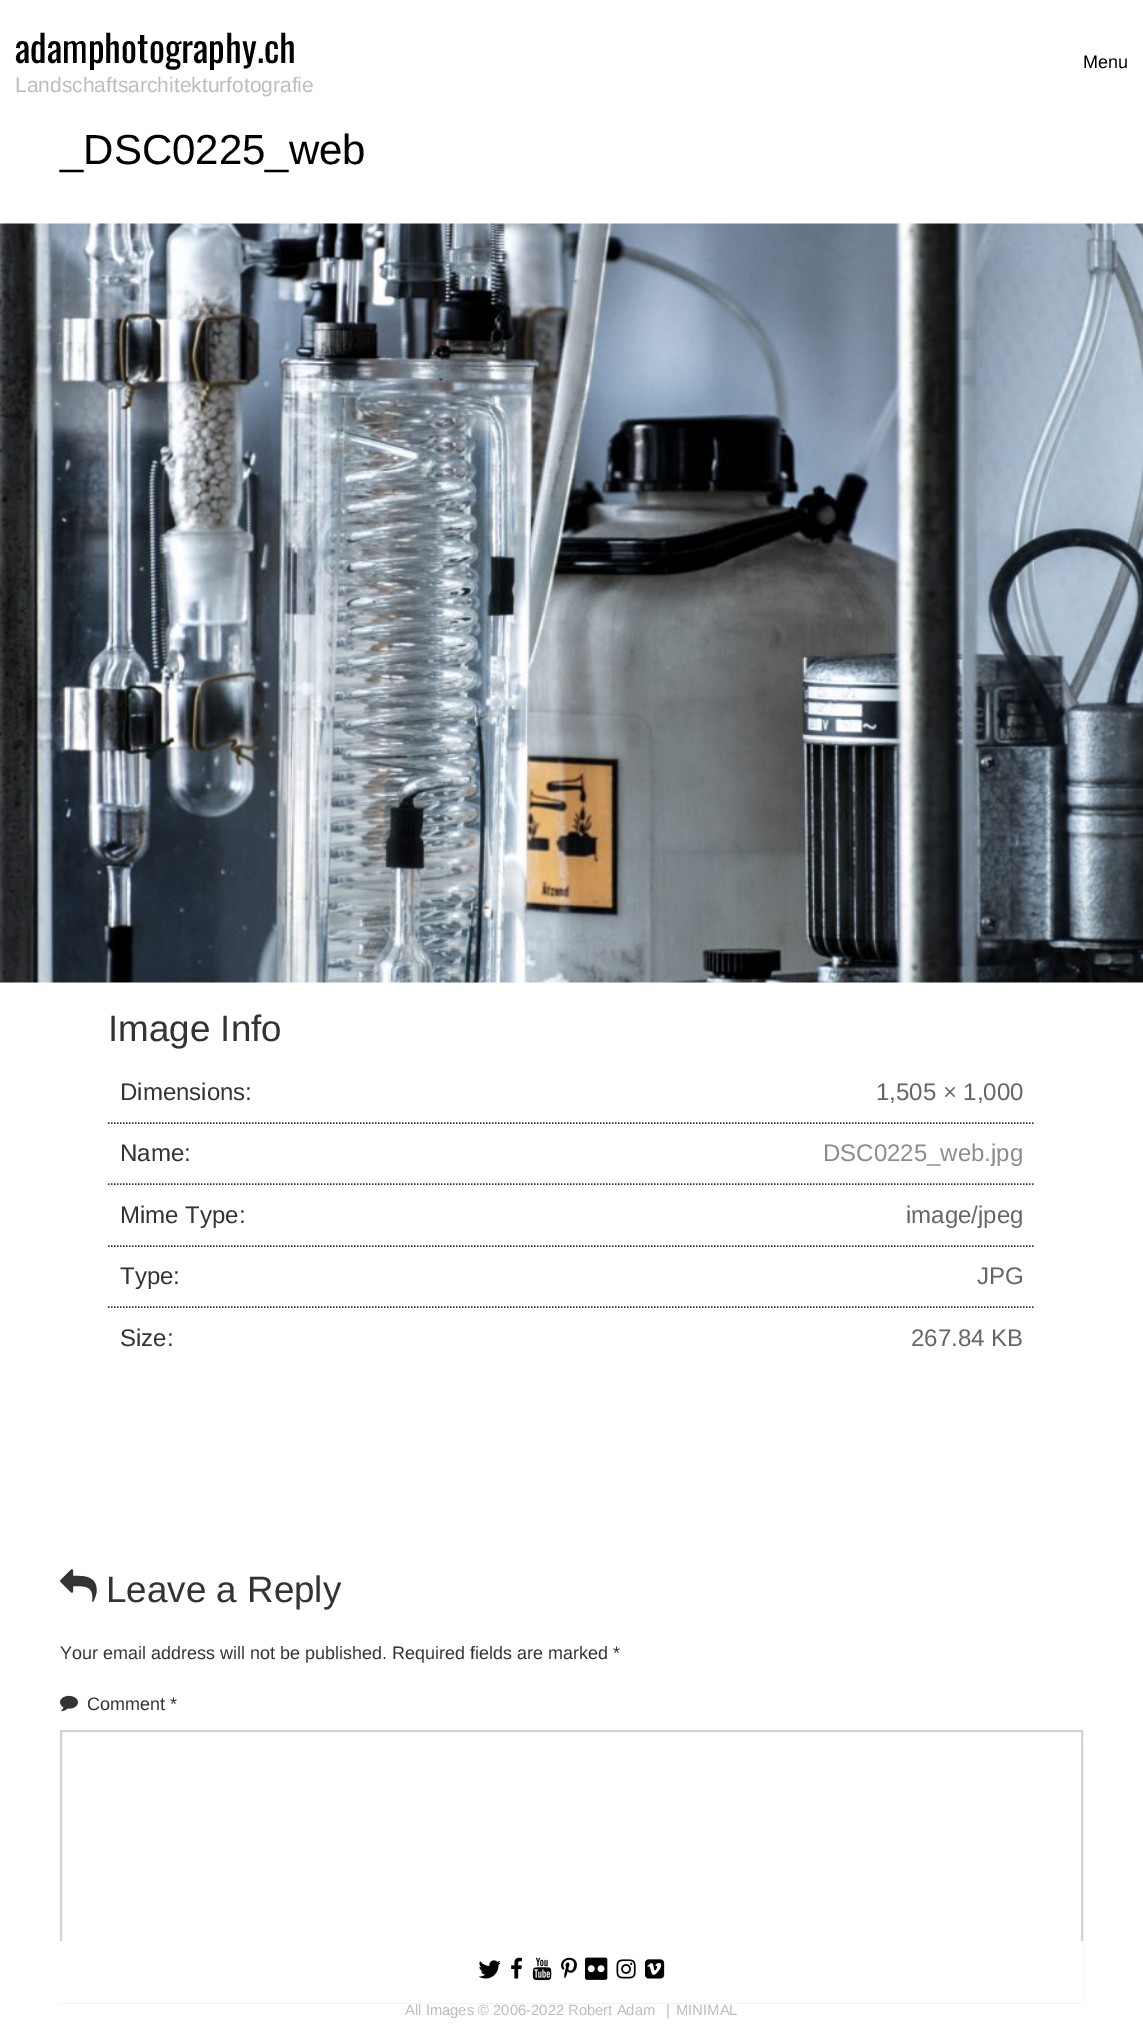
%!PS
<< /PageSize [1143 2034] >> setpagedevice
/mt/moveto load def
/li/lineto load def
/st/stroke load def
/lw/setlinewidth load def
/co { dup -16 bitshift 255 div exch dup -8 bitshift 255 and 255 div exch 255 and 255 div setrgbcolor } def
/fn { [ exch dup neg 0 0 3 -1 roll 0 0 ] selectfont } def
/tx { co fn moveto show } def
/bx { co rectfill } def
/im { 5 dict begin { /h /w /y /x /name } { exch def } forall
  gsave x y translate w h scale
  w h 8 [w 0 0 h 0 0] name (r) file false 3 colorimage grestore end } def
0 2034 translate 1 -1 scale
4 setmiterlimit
0 0 1143 2034 16#FFFFFF bx
(media/1.raw) 0 223 1143 760 im
16#333333 co
1.5 lw
[1.5 1.5] 0 setdash
108 1123 mt 1035 1123 li st
108 1184 mt 1035 1184 li st
108 1246 mt 1035 1246 li st
108 1307 mt 1035 1307 li st
(media/2.raw) 60 1569 37 33 im
(media/3.raw) 60 1695 18 17 im
16#CED4DA co
2 lw
[] 0 setdash
61 1731 1021 271 rectstroke
60 1941 1023 62 16#FFFFFF bx
(media/4.raw) 478 1960 23 19 im
(media/5.raw) 511 1957 11 22 im
(media/6.raw) 532 1957 20 24 im
(media/7.raw) 561 1957 16 22 im
(media/8.raw) 585 1957 23 23 im
(media/9.raw) 616 1959 20 20 im
(media/10.raw) 645 1959 20 20 im
(adamphotography.ch) 15 63 /Oswald-Regular 37.5 16#000000 tx
(Landschaftsarchitekturfotografie) 15 92 /LiberationSans-Regular 21 16#BDBDBD tx
(Menu) 1083 68 /LiberationSans-Regular 18 16#000000 tx
(_DSC0225_web) 60 164 /LiberationSans-Regular 42 16#000000 tx
(Image Info) 108 1041 /LiberationSans-Regular 36.75 16#333333 tx
(Dimensions:) 120 1100 /LiberationSans-Regular 24 16#333333 tx
(1,505 × 1,000) 876 1100 /LiberationSans-Regular 24 16#666666 tx
(Name:) 120 1161 /LiberationSans-Regular 24 16#333333 tx
(DSC0225_web.jpg) 823 1161 /LiberationSans-Regular 24 16#8C8C8C tx
(Mime Type:) 120 1223 /LiberationSans-Regular 24 16#333333 tx
(image/jpeg) 906 1223 /LiberationSans-Regular 24 16#666666 tx
(Type:) 120 1284 /LiberationSans-Regular 24 16#333333 tx
(JPG) 977 1284 /LiberationSans-Regular 24 16#666666 tx
(Size:) 120 1346 /LiberationSans-Regular 24 16#333333 tx
(267.84 KB) 911 1346 /LiberationSans-Regular 24 16#666666 tx
(Leave a Reply) 106 1602 /LiberationSans-Regular 36.75 16#333333 tx
(Your email address will not be published. Required fields are marked *) 60 1659 /LiberationSans-Regular 18 16#333333 tx
(Comment *) 87 1710 /LiberationSans-Regular 18 16#333333 tx
(All Images © 2006-2022 Robert Adam) 405 2015 /LiberationSans-Regular 14.8 16#BDBDBD tx
(|) 666 2015 /LiberationSans-Regular 14.8 16#BDBDBD tx
(MINIMAL) 676 2015 /LiberationSans-Regular 14.8 16#BDBDBD tx
showpage
